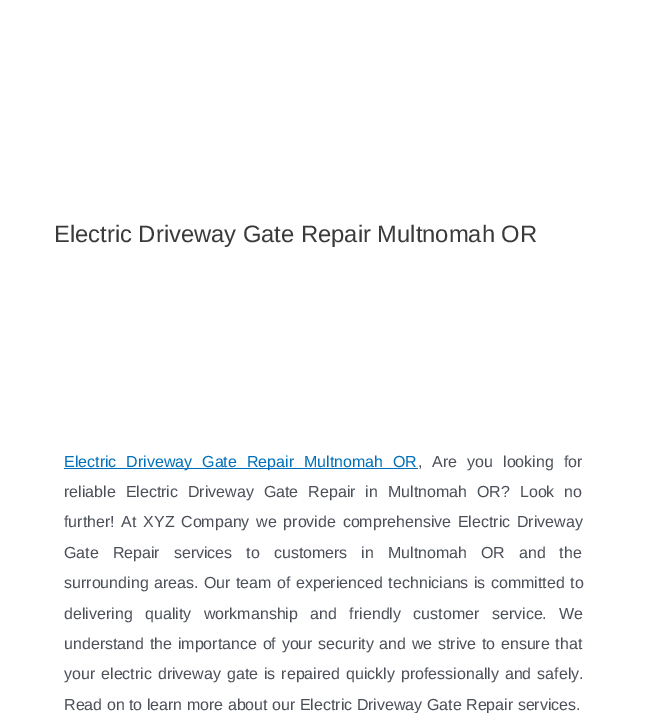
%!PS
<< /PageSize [647 713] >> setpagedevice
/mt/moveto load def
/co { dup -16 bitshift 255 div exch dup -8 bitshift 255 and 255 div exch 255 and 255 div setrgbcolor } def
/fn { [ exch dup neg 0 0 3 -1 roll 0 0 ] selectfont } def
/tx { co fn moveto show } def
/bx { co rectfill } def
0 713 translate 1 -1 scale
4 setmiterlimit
0 0 647 713 16#FFFFFF bx
64 468 354 1 16#0170B9 bx
(Electric Driveway Gate Repair Multnomah OR) 54 242 /LiberationSans-Regular 23.75 16#3A3A3A tx
/LiberationSans-Regular 16 fn
16#0170B9 co
64 467 mt 5.5 0 32 (Electric Driveway Gate Repair Multnomah OR) widthshow
16#4B4F58 co
418 467 mt 5.5 0 32 (, Are you looking for) widthshow
64 497 mt 5.5 0 32 (reliable Electric Driveway Gate Repair in Multnomah OR? Look no) widthshow
64 527 mt 2.25 0 32 (further! At XYZ Company we provide comprehensive Electric Driveway) widthshow
64 558 mt 9.5 0 32 (Gate Repair services to customers in Multnomah OR and the) widthshow
64 588 mt 1 0 32 (surrounding areas. Our team of experienced technicians is committed to) widthshow
64 619 mt 8 0 32 (delivering quality workmanship and friendly customer service. We) widthshow
64 649 mt 1.25 0 32 (understand the importance of your security and we strive to ensure that) widthshow
64 679 mt 1.5 0 32 (your electric driveway gate is repaired quickly professionally and safely.) widthshow
(Read on to learn more about our Electric Driveway Gate Repair services.) 64 710 /LiberationSans-Regular 16 16#4B4F58 tx
showpage
